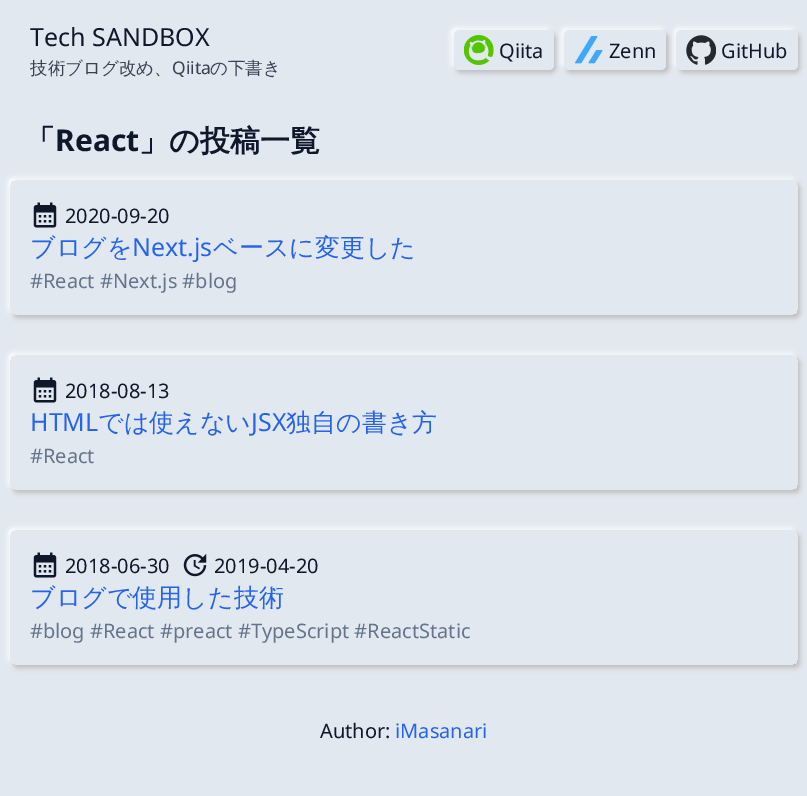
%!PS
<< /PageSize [807 796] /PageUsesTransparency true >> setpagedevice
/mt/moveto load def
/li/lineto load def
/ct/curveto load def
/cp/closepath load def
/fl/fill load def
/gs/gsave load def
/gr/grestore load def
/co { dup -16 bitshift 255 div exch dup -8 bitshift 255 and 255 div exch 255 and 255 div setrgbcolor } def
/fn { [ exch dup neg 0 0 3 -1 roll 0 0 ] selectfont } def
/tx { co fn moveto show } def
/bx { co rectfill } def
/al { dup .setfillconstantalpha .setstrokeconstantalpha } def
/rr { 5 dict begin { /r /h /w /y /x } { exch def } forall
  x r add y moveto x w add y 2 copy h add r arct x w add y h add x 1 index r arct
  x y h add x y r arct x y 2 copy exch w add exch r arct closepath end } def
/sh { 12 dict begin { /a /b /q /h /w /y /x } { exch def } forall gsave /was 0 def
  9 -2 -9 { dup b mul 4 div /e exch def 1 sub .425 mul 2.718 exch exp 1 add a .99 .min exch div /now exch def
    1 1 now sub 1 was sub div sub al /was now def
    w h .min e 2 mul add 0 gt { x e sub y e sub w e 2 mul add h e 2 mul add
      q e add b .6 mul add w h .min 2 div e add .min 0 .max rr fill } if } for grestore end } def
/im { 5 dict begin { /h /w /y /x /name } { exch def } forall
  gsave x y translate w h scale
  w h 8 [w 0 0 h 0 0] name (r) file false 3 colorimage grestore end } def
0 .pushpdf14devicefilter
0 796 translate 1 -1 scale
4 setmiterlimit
0 0 807 796 16#E2E8F0 bx
16#FFFFFF co
451 28 100 40 5 2.5 1 sh
16#BEBEBE co
456 33 100 40 5 2.5 1 sh
16#E2E8F0 co
454 30 100 40 5 rr fl
(media/1.raw) 464 35 30 30 im
16#FFFFFF co
561 28 103 40 5 2.5 1 sh
16#BEBEBE co
566 33 103 40 5 2.5 1 sh
16#E2E8F0 co
564 30 102 40 5 rr fl
(media/2.raw) 574 36 29 28 im
16#FFFFFF co
674 28 121 40 5 2.5 1 sh
16#BEBEBE co
679 33 121 40 5 2.5 1 sh
16#E2E8F0 co
676 30 122 40 5 rr fl
(media/3.raw) 686 35 30 30 im
gs
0 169 mt 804 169 li 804 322 li 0 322 li cp 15 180 mt 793 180 li 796 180 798 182 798 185 ct 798 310 li 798 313 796 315 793 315 ct 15 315 li 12 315 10 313 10 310 ct 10 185 li 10 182 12 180 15 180 ct cp eoclip newpath
16#FFFFFF co
8 178 787 135 5 2.5 1 sh
gr
gs
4 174 mt 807 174 li 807 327 li 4 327 li cp 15 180 mt 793 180 li 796 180 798 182 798 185 ct 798 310 li 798 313 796 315 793 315 ct 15 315 li 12 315 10 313 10 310 ct 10 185 li 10 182 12 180 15 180 ct cp eoclip newpath
16#BEBEBE co
13 183 787 135 5 2.5 1 sh
gr
(media/4.raw) 33 202 24 26 im
gs
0 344 mt 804 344 li 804 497 li 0 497 li cp 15 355 mt 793 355 li 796 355 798 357 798 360 ct 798 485 li 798 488 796 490 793 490 ct 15 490 li 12 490 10 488 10 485 ct 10 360 li 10 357 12 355 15 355 ct cp eoclip newpath
16#FFFFFF co
8 353 787 135 5 2.5 1 sh
gr
gs
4 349 mt 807 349 li 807 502 li 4 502 li cp 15 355 mt 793 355 li 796 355 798 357 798 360 ct 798 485 li 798 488 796 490 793 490 ct 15 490 li 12 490 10 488 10 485 ct 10 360 li 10 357 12 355 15 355 ct cp eoclip newpath
16#BEBEBE co
13 358 787 135 5 2.5 1 sh
gr
(media/4.raw) 33 377 24 26 im
gs
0 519 mt 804 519 li 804 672 li 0 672 li cp 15 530 mt 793 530 li 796 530 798 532 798 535 ct 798 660 li 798 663 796 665 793 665 ct 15 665 li 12 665 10 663 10 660 ct 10 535 li 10 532 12 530 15 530 ct cp eoclip newpath
16#FFFFFF co
8 528 787 135 5 2.5 1 sh
gr
gs
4 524 mt 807 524 li 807 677 li 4 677 li cp 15 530 mt 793 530 li 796 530 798 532 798 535 ct 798 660 li 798 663 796 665 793 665 ct 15 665 li 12 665 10 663 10 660 ct 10 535 li 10 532 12 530 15 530 ct cp eoclip newpath
16#BEBEBE co
13 533 787 135 5 2.5 1 sh
gr
(media/4.raw) 33 552 24 26 im
(media/5.raw) 183 553 24 24 im
(Tech SANDBOX) 30 46 /NotoSans-Regular 25 16#0F172A tx
(技術ブログ改め、) 30 74 /WenQuanYiZenHei-Medium 17.5 16#374151 tx
(Qiita) 172 74 /NotoSans-Regular 17.5 16#374151 tx
(の下書き) 210 74 /WenQuanYiZenHei-Medium 17.5 16#374151 tx
(Qiita) 499 58 /NotoSans-Regular 20 16#0F172A tx
(Zenn) 609 58 /NotoSans-Regular 20 16#0F172A tx
(GitHub) 721 58 /NotoSans-Regular 20 16#0F172A tx
(「) 25 151 /WenQuanYiZenHei-Bold 30 16#0F172A tx
(React) 55 151 /NotoSans-Bold 30 16#0F172A tx
(」の投稿一覧) 139 151 /WenQuanYiZenHei-Bold 30 16#0F172A tx
(2020-09-20) 65 223 /NotoSans-Regular 20 16#0F172A tx
(ブログを) 30 256 /WenQuanYiZenHei-Medium 25 16#2563EB tx
(Next.js) 132 256 /NotoSans-Regular 25 16#2563EB tx
(ベースに変更した) 213 256 /WenQuanYiZenHei-Medium 25 16#2563EB tx
(#React #Next.js #blog) 30 288 /NotoSans-Regular 20 16#64748B tx
(2018-08-13) 65 398 /NotoSans-Regular 20 16#0F172A tx
(HTML) 30 431 /NotoSans-Regular 25 16#2563EB tx
(では使えない) 98 431 /WenQuanYiZenHei-Medium 25 16#2563EB tx
(JSX) 251 431 /NotoSans-Regular 25 16#2563EB tx
(独自の書き方) 286 431 /WenQuanYiZenHei-Medium 25 16#2563EB tx
(#React) 30 463 /NotoSans-Regular 20 16#64748B tx
(2018-06-30) 65 573 /NotoSans-Regular 20 16#0F172A tx
(2019-04-20) 214 573 /NotoSans-Regular 20 16#0F172A tx
(ブログで使用した技術) 30 606 /WenQuanYiZenHei-Medium 25 16#2563EB tx
(#blog #React #preact #TypeScript #ReactStatic) 30 638 /NotoSans-Regular 20 16#64748B tx
(Author:) 320 738 /NotoSans-Regular 20 16#0F172A tx
(iMasanari) 395 738 /NotoSans-Regular 20 16#2563EB tx
.poppdf14devicefilter showpage
